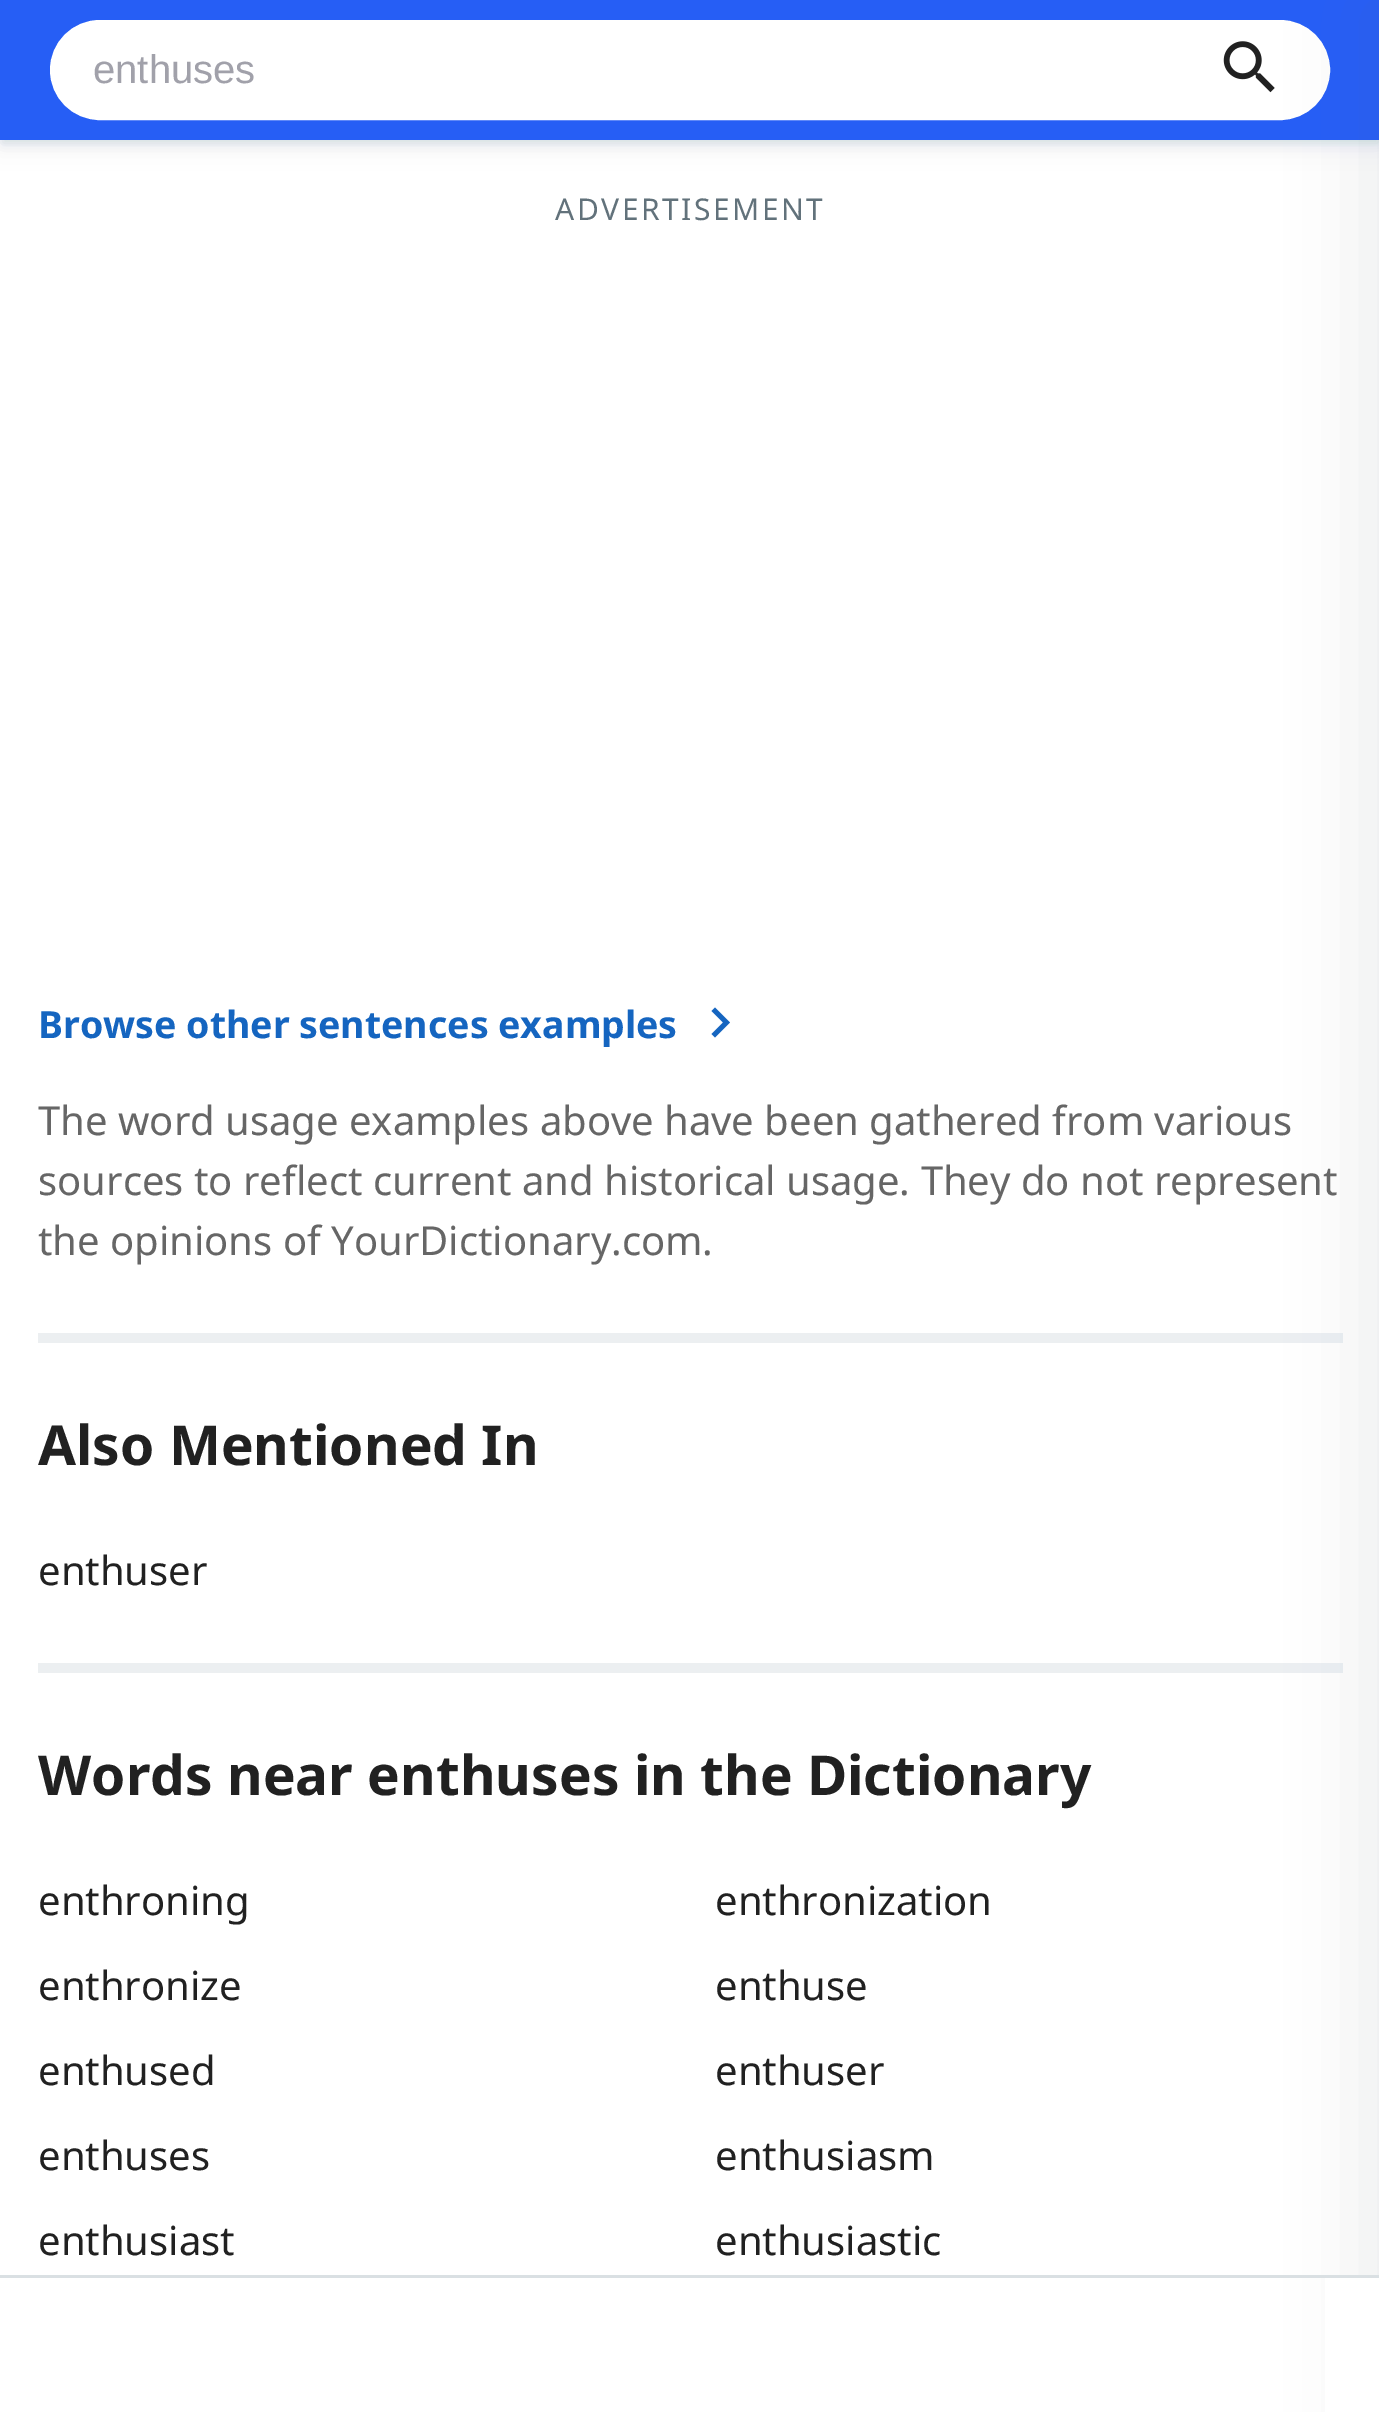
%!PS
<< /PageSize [1379 2412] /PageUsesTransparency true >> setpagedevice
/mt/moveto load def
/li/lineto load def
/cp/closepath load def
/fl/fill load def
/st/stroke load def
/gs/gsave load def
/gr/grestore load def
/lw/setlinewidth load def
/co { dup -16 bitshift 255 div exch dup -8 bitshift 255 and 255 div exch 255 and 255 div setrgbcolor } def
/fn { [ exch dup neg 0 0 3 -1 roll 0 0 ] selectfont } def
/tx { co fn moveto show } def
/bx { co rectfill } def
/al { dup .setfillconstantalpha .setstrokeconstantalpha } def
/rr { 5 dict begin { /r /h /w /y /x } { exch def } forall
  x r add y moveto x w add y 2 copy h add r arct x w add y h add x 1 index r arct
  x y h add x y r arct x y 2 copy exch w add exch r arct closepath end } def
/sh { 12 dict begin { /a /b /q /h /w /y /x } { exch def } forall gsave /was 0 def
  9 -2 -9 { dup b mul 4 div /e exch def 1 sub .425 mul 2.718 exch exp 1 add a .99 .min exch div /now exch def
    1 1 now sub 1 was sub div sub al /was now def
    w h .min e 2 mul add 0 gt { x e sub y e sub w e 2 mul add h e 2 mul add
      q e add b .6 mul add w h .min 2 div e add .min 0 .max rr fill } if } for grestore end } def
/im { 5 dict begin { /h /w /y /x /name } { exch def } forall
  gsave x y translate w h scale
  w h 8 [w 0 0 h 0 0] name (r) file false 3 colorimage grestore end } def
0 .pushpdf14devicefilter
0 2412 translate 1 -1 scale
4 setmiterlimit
0 0 1379 2412 16#FFFFFF bx
16#546E7A co
3 -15 1375 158 0 5 .2 sh
0 -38 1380 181 0 12.5 .12 sh
0 0 1379 140 16#265EF5 bx
16#FFFFFF co
52.5 22.5 1275 95 47.5 rr gs fl gr
5 lw
st
(media/1.raw) 1223 41 52 52 im
38 1333 1305 10 16#ECEFF1 bx
38 1663 1305 10 16#ECEFF1 bx
16#546E7A co
1368 3 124 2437 0 37.5 .12 sh
16#1565C0 co
715 1007.5 mt 711.5 1011 li 723 1022.5 li 711.5 1034 li 715 1037.5 li 730 1022.5 li cp fl
1325 2278 54 134 16#FFFFFF bx
0 2275 1379 3 16#DAE0E3 bx
(enthuses) 93 83 /LiberationSans-Regular 40 16#A1A1AA tx
/NotoSans-Regular 30 fn
16#62727B co
555 220 mt 2.5 0 (ADVERTISEMENT) ashow
(Browse other sentences examples) 38 1038 /NotoSans-Bold 37.5 16#1565C0 tx
(The word usage examples above have been gathered from various) 38 1135 /NotoSans-Regular 40 16#666666 tx
(sources to reflect current and historical usage. They do not represent) 38 1195 /NotoSans-Regular 40 16#666666 tx
(the opinions of YourDictionary.com.) 38 1255 /NotoSans-Regular 40 16#666666 tx
(Also Mentioned In) 38 1465 /NotoSans-Bold 55 16#212121 tx
(enthuser) 38 1585 /NotoSans-Regular 40 16#212121 tx
(Words near enthuses in the Dictionary) 38 1795 /NotoSans-Bold 55 16#212121 tx
(enthroning) 38 1915 /NotoSans-Regular 40 16#212121 tx
(enthronization) 715 1915 /NotoSans-Regular 40 16#212121 tx
(enthronize) 38 2000 /NotoSans-Regular 40 16#212121 tx
(enthuse) 715 2000 /NotoSans-Regular 40 16#212121 tx
(enthused) 38 2085 /NotoSans-Regular 40 16#212121 tx
(enthuser) 715 2085 /NotoSans-Regular 40 16#212121 tx
(enthuses) 38 2170 /NotoSans-Regular 40 16#212121 tx
(enthusiasm) 715 2170 /NotoSans-Regular 40 16#212121 tx
(enthusiast) 38 2255 /NotoSans-Regular 40 16#212121 tx
(enthusiastic) 715 2255 /NotoSans-Regular 40 16#212121 tx
.poppdf14devicefilter showpage
